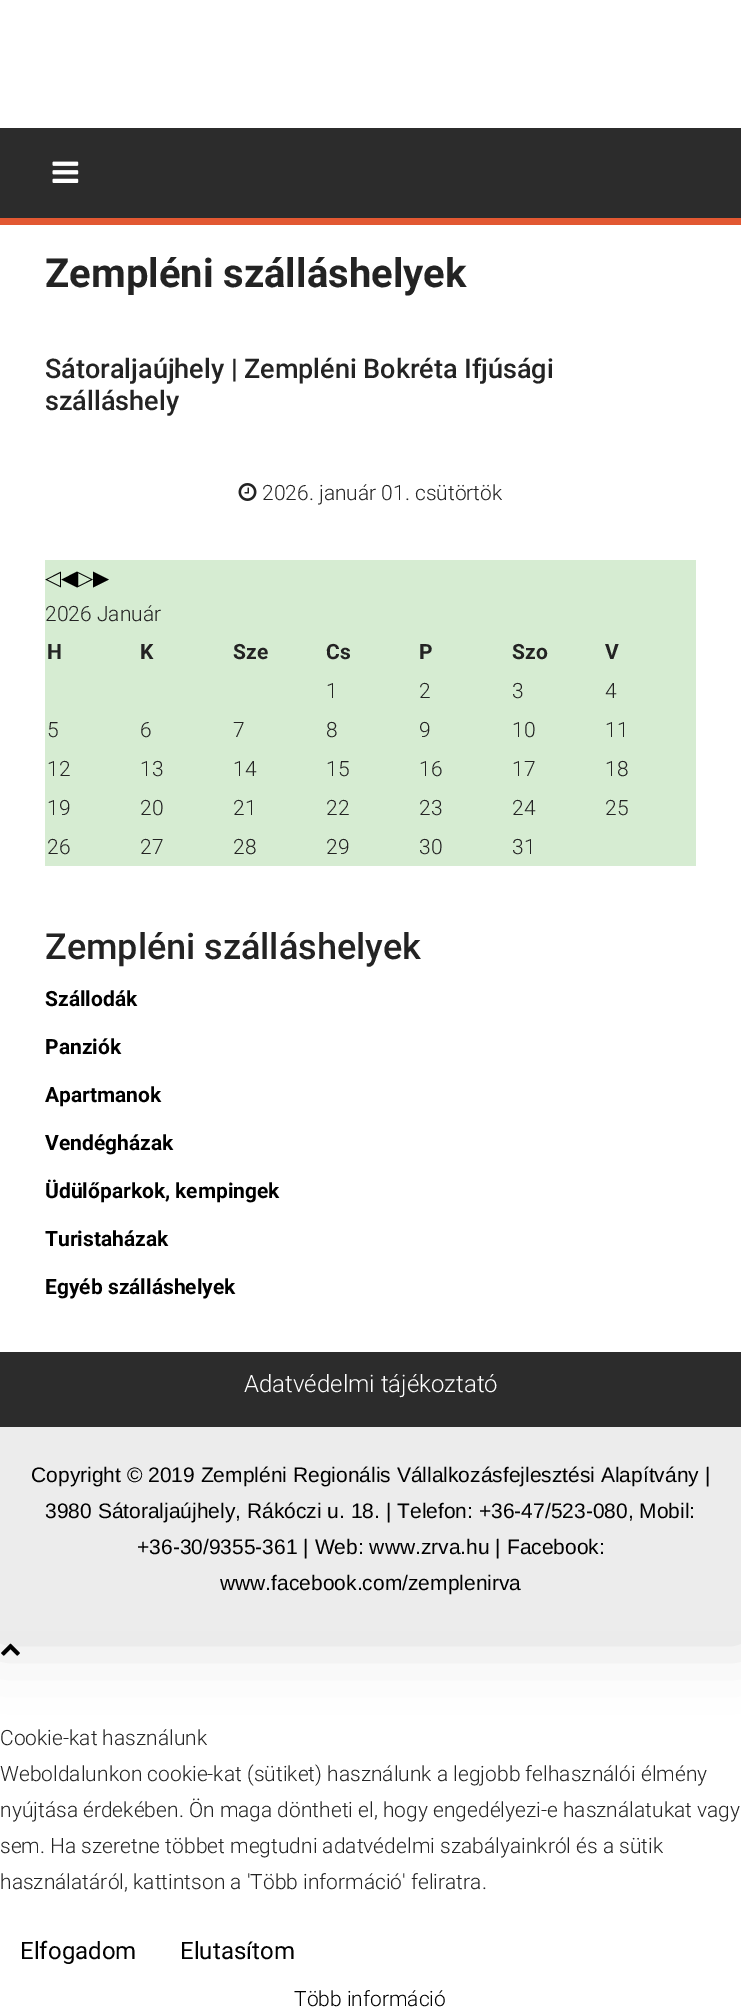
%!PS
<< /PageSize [741 2016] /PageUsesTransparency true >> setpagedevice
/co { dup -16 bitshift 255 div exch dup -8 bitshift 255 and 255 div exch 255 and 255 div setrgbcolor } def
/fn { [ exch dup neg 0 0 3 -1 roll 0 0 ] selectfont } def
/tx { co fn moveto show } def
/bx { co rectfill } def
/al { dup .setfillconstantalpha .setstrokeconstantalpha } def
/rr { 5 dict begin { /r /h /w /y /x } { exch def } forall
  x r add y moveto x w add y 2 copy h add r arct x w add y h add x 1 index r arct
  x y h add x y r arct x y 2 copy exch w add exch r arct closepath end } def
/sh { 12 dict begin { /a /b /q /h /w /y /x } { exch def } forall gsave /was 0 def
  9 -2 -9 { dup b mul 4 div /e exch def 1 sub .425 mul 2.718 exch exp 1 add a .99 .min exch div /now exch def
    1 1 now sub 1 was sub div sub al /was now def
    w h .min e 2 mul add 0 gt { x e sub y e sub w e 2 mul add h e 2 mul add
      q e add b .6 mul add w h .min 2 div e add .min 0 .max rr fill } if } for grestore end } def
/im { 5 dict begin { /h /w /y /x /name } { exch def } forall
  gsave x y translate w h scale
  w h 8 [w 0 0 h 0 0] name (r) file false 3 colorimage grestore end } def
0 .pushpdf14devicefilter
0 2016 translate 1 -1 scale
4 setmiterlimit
0 0 741 2016 16#FFFFFF bx
(media/3.raw) 1 1643 19 13 im
16#000000 co
-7 -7 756 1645 0 34 .15 sh
0 0 741 1352 16#FFFFFF bx
0 128 741 90 16#2C2C2C bx
0 218 741 7 16#E25832 bx
(media/1.raw) 52 161 27 22 im
(media/2.raw) 238 483 19 18 im
45 560 651 306 16#D6ECD2 bx
0 1352 741 75 16#2C2C2C bx
0 1427 741 204 16#ECECEC bx
(Zempléni szálláshelyek) 45 287 /Roboto-Bold 40 16#232323 tx
(Sátoraljaújhely | Zempléni Bokréta Ifjúsági) 45 378 /Roboto-Medium 27 16#232323 tx
(szálláshely) 45 410 /Roboto-Medium 27 16#232323 tx
(2026. január 01. csütörtök) 262 500 /Roboto-Light 21 16#232323 tx
(◁◀▷▶) 45 585 /DejaVuSans-Regular 21 16#000000 tx
(2026 Január) 45 621 /Roboto-Light 21 16#232323 tx
(H) 47 659 /Roboto-Bold 21 16#232323 tx
(K) 140 659 /Roboto-Bold 21 16#232323 tx
(Sze) 233 659 /Roboto-Bold 21 16#232323 tx
(Cs) 326 659 /Roboto-Bold 21 16#232323 tx
(P) 419 659 /Roboto-Bold 21 16#232323 tx
(Szo) 512 659 /Roboto-Bold 21 16#232323 tx
(V) 605 659 /Roboto-Bold 21 16#232323 tx
(1) 326 698 /Roboto-Light 21 16#232323 tx
(2) 419 698 /Roboto-Light 21 16#232323 tx
(3) 512 698 /Roboto-Light 21 16#232323 tx
(4) 605 698 /Roboto-Light 21 16#232323 tx
(5) 47 737 /Roboto-Light 21 16#232323 tx
(6) 140 737 /Roboto-Light 21 16#232323 tx
(7) 233 737 /Roboto-Light 21 16#232323 tx
(8) 326 737 /Roboto-Light 21 16#232323 tx
(9) 419 737 /Roboto-Light 21 16#232323 tx
(10) 512 737 /Roboto-Light 21 16#232323 tx
(11) 605 737 /Roboto-Light 21 16#232323 tx
(12) 47 776 /Roboto-Light 21 16#232323 tx
(13) 140 776 /Roboto-Light 21 16#232323 tx
(14) 233 776 /Roboto-Light 21 16#232323 tx
(15) 326 776 /Roboto-Light 21 16#232323 tx
(16) 419 776 /Roboto-Light 21 16#232323 tx
(17) 512 776 /Roboto-Light 21 16#232323 tx
(18) 605 776 /Roboto-Light 21 16#232323 tx
(19) 47 815 /Roboto-Light 21 16#232323 tx
(20) 140 815 /Roboto-Light 21 16#232323 tx
(21) 233 815 /Roboto-Light 21 16#232323 tx
(22) 326 815 /Roboto-Light 21 16#232323 tx
(23) 419 815 /Roboto-Light 21 16#232323 tx
(24) 512 815 /Roboto-Light 21 16#232323 tx
(25) 605 815 /Roboto-Light 21 16#232323 tx
(26) 47 854 /Roboto-Light 21 16#232323 tx
(27) 140 854 /Roboto-Light 21 16#232323 tx
(28) 233 854 /Roboto-Light 21 16#232323 tx
(29) 326 854 /Roboto-Light 21 16#232323 tx
(30) 419 854 /Roboto-Light 21 16#232323 tx
(31) 512 854 /Roboto-Light 21 16#232323 tx
(Zempléni szálláshelyek) 45 959 /Roboto-Medium 36 16#232323 tx
(Szállodák) 45 1006 /Roboto-Bold 21 16#000000 tx
(Panziók) 45 1054 /Roboto-Bold 21 16#000000 tx
(Apartmanok) 45 1102 /Roboto-Bold 21 16#000000 tx
(Vendégházak) 45 1150 /Roboto-Bold 21 16#000000 tx
(Üdülőparkok, kempingek) 45 1198 /Roboto-Bold 21 16#000000 tx
(Turistaházak) 45 1246 /Roboto-Bold 21 16#000000 tx
(Egyéb szálláshelyek) 45 1294 /Roboto-Bold 21 16#000000 tx
(Adatvédelmi tájékoztató) 244 1392 /Roboto-Light 24 16#FFFFFF tx
(Copyright © 2019 Zempléni Regionális Vállalkozásfejlesztési Alapítvány |) 31 1482 /LiberationSans-Regular 21 16#000000 tx
(3980 Sátoraljaújhely, Rákóczi u. 18. | Telefon: +36-47/523-080, Mobil:) 45 1518 /LiberationSans-Regular 21 16#000000 tx
(+36-30/9355-361 | Web: www.zrva.hu | Facebook:) 137 1554 /LiberationSans-Regular 21 16#000000 tx
(www.facebook.com/zemplenirva) 220 1590 /LiberationSans-Regular 21 16#000000 tx
(Cookie-kat használunk) 0 1745 /Roboto-Light 21 16#232323 tx
(Weboldalunkon cookie-kat \(sütiket\) használunk a legjobb felhasználói élmény) 0 1781 /Roboto-Light 21 16#232323 tx
(nyújtása érdekében. Ön maga döntheti el, hogy engedélyezi-e használatukat vagy) 0 1817 /Roboto-Light 21 16#232323 tx
(sem. Ha szeretne többet megtudni adatvédelmi szabályainkról és a sütik) 0 1853 /Roboto-Light 21 16#232323 tx
(használatáról, kattintson a 'Több információ' feliratra.) 0 1889 /Roboto-Light 21 16#232323 tx
(Elfogadom) 20 1959 /Heebo-Regular 24 16#000000 tx
(Elutasítom) 180 1959 /Heebo-Regular 24 16#000000 tx
(Több információ) 294 2006 /Roboto-Light 21 16#000000 tx
.poppdf14devicefilter showpage
